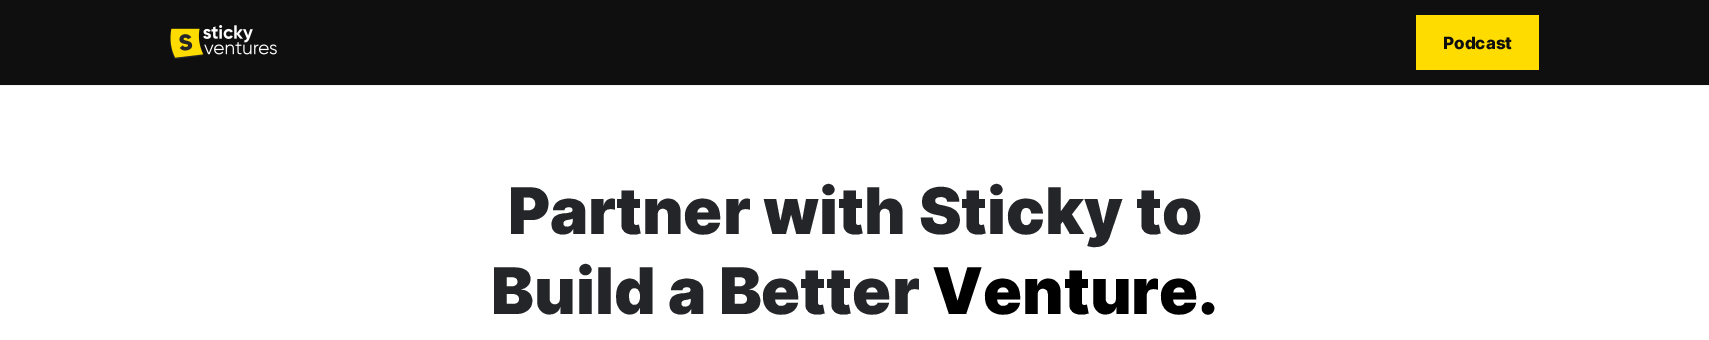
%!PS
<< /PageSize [1709 340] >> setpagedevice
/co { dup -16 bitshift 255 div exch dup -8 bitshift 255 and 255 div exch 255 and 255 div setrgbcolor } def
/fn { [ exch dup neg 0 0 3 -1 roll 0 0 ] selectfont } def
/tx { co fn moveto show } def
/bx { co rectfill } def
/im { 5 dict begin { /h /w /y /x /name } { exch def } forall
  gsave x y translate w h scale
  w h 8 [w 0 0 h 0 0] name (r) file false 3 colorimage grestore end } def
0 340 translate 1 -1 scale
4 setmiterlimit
0 0 1709 340 16#FFFFFF bx
0 0 1709 85 16#0F0F0F bx
0 85 1709 1 16#F2F4F7 bx
(media/1.raw) 170 25 107 34 im
1416 15 123 55 16#FFDC00 bx
(Podcast) 1443 49 /Inter-ExtraBold 17 16#0F0F0F tx
(Partner with Sticky to) 508 234 /Inter-Black 64.25 16#242528 tx
(Build a Better) 491 314 /Inter-Black 64.25 16#242528 tx
(Venture.) 932 314 /Inter-Black 64.25 16#000000 tx
showpage
